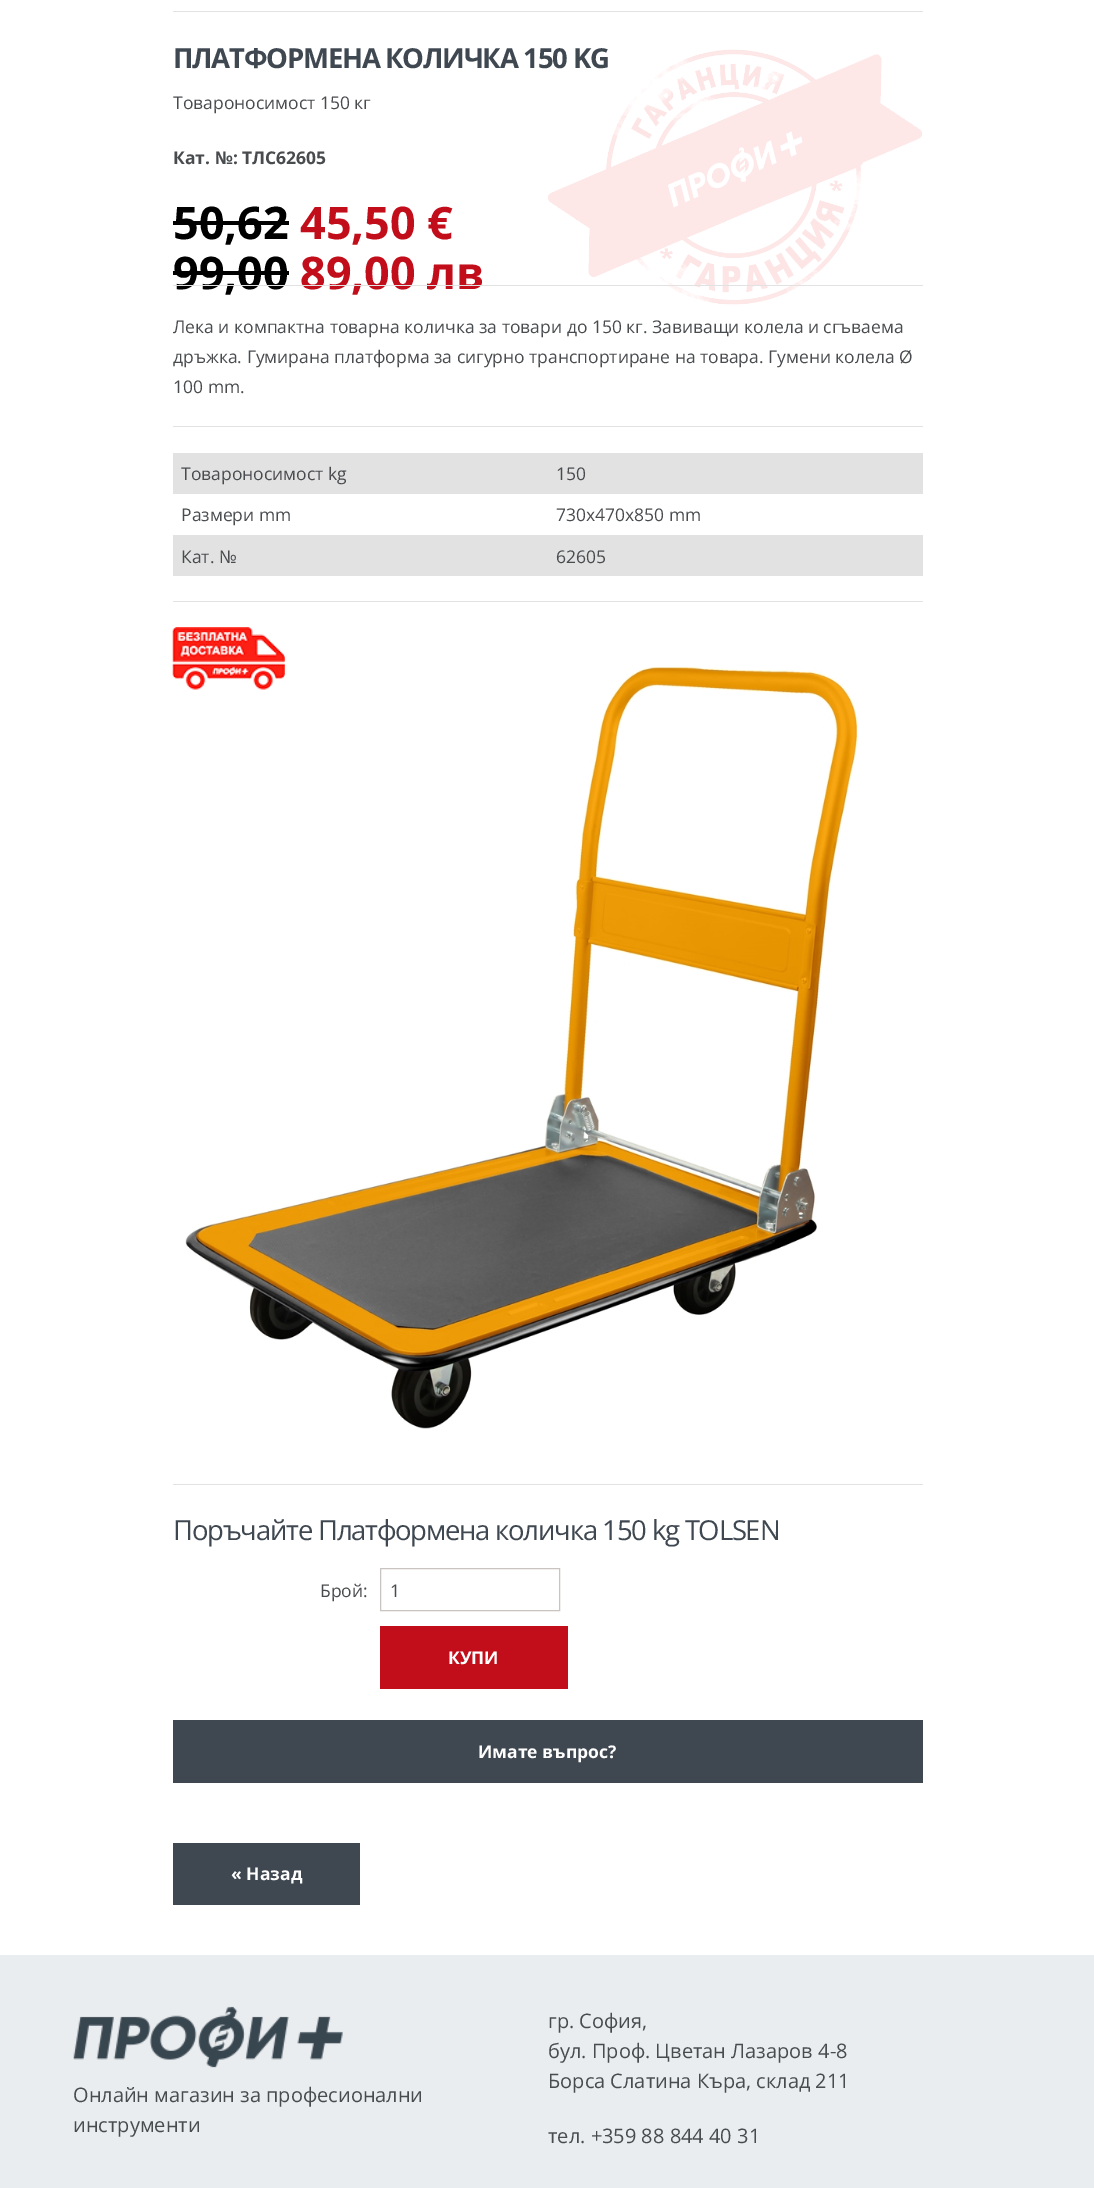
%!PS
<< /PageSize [1094 2188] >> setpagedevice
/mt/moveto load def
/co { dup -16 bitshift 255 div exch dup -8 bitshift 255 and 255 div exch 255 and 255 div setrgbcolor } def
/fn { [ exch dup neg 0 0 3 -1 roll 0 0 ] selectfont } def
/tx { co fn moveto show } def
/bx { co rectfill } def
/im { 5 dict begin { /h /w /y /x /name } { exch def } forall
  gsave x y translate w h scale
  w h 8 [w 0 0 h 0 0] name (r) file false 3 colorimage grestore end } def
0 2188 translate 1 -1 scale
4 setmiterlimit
0 0 1094 2188 16#FFFFFF bx
(media/1.raw) 548 49 374 256 im
173 11 750 1 16#E2E2E2 bx
173 221 116 4 16#000000 bx
173 271 116 4 16#000000 bx
173 426 750 1 16#E2E2E2 bx
173 453 750 41 16#E2E2E2 bx
173 535 750 41 16#E2E2E2 bx
173 601 750 1 16#E2E2E2 bx
(media/3.raw) 185 667 673 762 im
(media/2.raw) 172 627 113 63 im
173 1484 750 1 16#E2E2E2 bx
16#C9C4C2 co
380.5 1568.5 179 42 rectstroke
380 1626 188 63 16#C20E1A bx
173 1720 750 63 16#3F4851 bx
173 1843 187 62 16#3F4851 bx
0 1955 1094 233 16#EAEDEF bx
(media/4.raw) 73 2006 270 62 im
/OpenSans-Bold 27.5 fn
16#3F4851 co
173 68 mt -1.25 0 (ПЛАТФОРМЕНА КОЛИЧКА 150 KG) ashow
(Товароносимост 150 кг) 173 109 /OpenSans-Regular 17.5 16#494C4F tx
(Кат. №: ТЛС62605) 173 164 /OpenSans-Bold 17.5 16#494C4F tx
(50,62) 173 239 /OpenSans-Bold 45 16#000000 tx
(45,50 €) 300 239 /OpenSans-Bold 45 16#C20E1A tx
(99,00) 173 289 /OpenSans-Bold 45 16#000000 tx
(89,00 лв) 300 289 /OpenSans-Bold 45 16#C20E1A tx
173 285 750 1 16#E2E2E2 bx
(Лека и компактна товарна количка за товари до 150 кг. Завиващи колела и сгъваема) 173 333 /OpenSans-Regular 17.5 16#494C4F tx
(дръжка. Гумирана платформа за сигурно транспортиране на товара. Гумени колела Ø) 173 363 /OpenSans-Regular 17.5 16#494C4F tx
(100 mm.) 173 393 /OpenSans-Regular 17.5 16#494C4F tx
(Товароносимост kg) 181 480 /OpenSans-Regular 17.5 16#494C4F tx
(150) 556 480 /OpenSans-Regular 17.5 16#494C4F tx
(Размери mm) 181 521 /OpenSans-Regular 17.5 16#494C4F tx
(730x470x850 mm) 556 521 /OpenSans-Regular 17.5 16#494C4F tx
(Кат. №) 181 563 /OpenSans-Regular 17.5 16#494C4F tx
(62605) 556 563 /OpenSans-Regular 17.5 16#494C4F tx
/OpenSans-Regular 27.5 fn
16#3F4851 co
173 1540 mt -1.25 0 (Поръчайте Платформена количка 150 kg TOLSEN) ashow
(Брой:) 320 1597 /OpenSans-Regular 17.5 16#494C4F tx
(1) 390 1597 /OpenSans-Regular 17.5 16#494C4F tx
(КУПИ) 448 1664 /OpenSans-Bold 17.5 16#FFFFFF tx
(Имате въпрос?) 478 1758 /OpenSans-Bold 17.5 16#FFFFFF tx
(« Назад) 231 1880 /OpenSans-Bold 17.5 16#FFFFFF tx
(гр. София,) 548 2028 /OpenSans-Regular 20 16#494C4F tx
(бул. Проф. Цветан Лазаров 4-8) 548 2058 /OpenSans-Regular 20 16#494C4F tx
(Борса Слатина Къра, склад 211) 548 2088 /OpenSans-Regular 20 16#494C4F tx
(Онлайн магазин за професионални) 73 2102 /OpenSans-Regular 20 16#494C4F tx
(инструменти) 73 2132 /OpenSans-Regular 20 16#494C4F tx
(тел. +359 88 844 40 31) 548 2143 /OpenSans-Regular 20 16#494C4F tx
showpage
